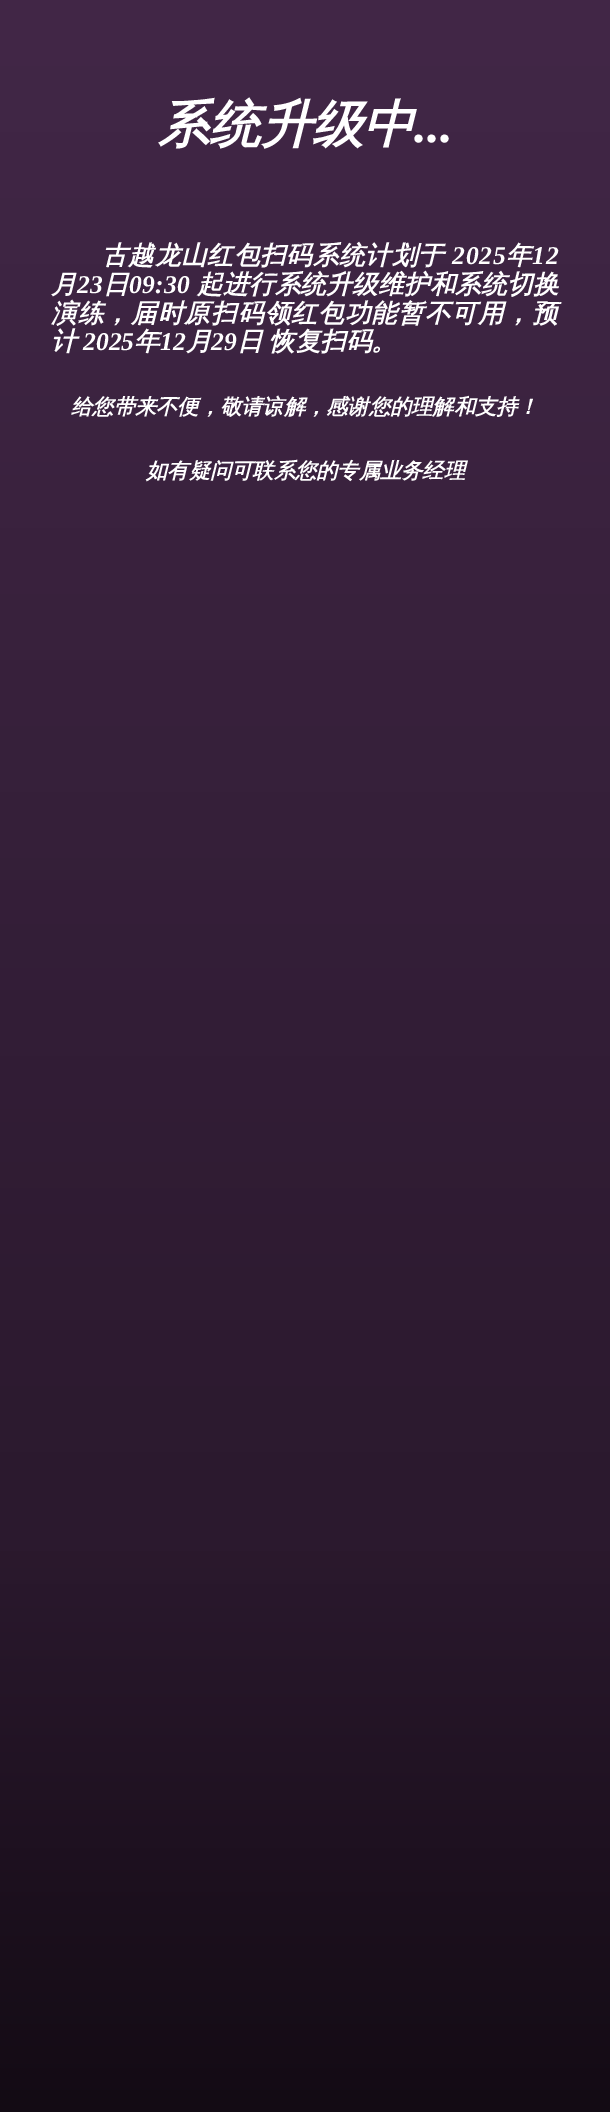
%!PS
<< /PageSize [610 2112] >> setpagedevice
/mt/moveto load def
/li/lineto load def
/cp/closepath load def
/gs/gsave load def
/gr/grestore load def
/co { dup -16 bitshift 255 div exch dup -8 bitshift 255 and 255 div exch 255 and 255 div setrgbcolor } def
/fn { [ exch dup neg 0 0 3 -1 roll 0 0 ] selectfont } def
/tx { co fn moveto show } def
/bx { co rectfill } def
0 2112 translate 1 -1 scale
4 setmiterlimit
0 0 610 2112 16#FFFFFF bx
gs 0 0 mt 610 0 li 610 2112 li 0 2112 li cp clip newpath
<< /ShadingType 2 /ColorSpace /DeviceRGB /Coords [305 0 305 2112] /Extend [true true] /Function << /FunctionType 3 /Domain [0 1] /Functions [<< /FunctionType 2 /Domain [0 1] /C0 [.259 .153 .278] /C1 [.169 .098 .18] /N 1 >> << /FunctionType 2 /Domain [0 1] /C0 [.169 .098 .18] /C1 [.075 .043 .078] /N 1 >>] /Bounds [.73] /Encode [0 1 0 1] >> >> shfill gr
(系统升级中) 158 142 /WenQuanYiZenHei-BoldItalic 51.25 16#FFFFFF tx
(...) 414 142 /LiberationSerif-BoldItalic 51.25 16#FFFFFF tx
/WenQuanYiZenHei-BoldItalic 25.6 fn
102 264 mt .75 0 (古越龙山红包扫码系统计划于) ashow
/LiberationSerif-BoldItalic 25.6 fn
452 264 mt .75 0 (2025) ashow
/WenQuanYiZenHei-BoldItalic 25.6 fn
506 264 mt .75 0 (年) ashow
/LiberationSerif-BoldItalic 25.6 fn
532 264 mt .75 0 (12) ashow
/WenQuanYiZenHei-BoldItalic 25.6 fn
51 293 mt .25 0 (月) ashow
/LiberationSerif-BoldItalic 25.6 fn
77 293 mt .25 0 (23) ashow
/WenQuanYiZenHei-BoldItalic 25.6 fn
103 293 mt .25 0 (日) ashow
/LiberationSerif-BoldItalic 25.6 fn
129 293 mt .25 0 (09:30) ashow
/WenQuanYiZenHei-BoldItalic 25.6 fn
197 293 mt .25 0 (起进行系统升级维护和系统切换) ashow
51 322 mt 1.1 0 (演练，届时原扫码领红包功能暂不可用，预) ashow
(计) 51 350 /WenQuanYiZenHei-BoldItalic 25.6 16#FFFFFF tx
(2025) 83 350 /LiberationSerif-BoldItalic 25.6 16#FFFFFF tx
(年) 134 350 /WenQuanYiZenHei-BoldItalic 25.6 16#FFFFFF tx
(12) 160 350 /LiberationSerif-BoldItalic 25.6 16#FFFFFF tx
(月) 186 350 /WenQuanYiZenHei-BoldItalic 25.6 16#FFFFFF tx
(29) 211 350 /LiberationSerif-BoldItalic 25.6 16#FFFFFF tx
(日) 237 350 /WenQuanYiZenHei-BoldItalic 25.6 16#FFFFFF tx
(恢复扫码。) 269 350 /WenQuanYiZenHei-BoldItalic 25.6 16#FFFFFF tx
(给您带来不便，敬请谅解，感谢您的理解和支持！) 71 414 /WenQuanYiZenHei-BoldItalic 21.25 16#FFFFFF tx
(如有疑问可联系您的专属业务经理) 146 478 /WenQuanYiZenHei-BoldItalic 21.25 16#FFFFFF tx
showpage
